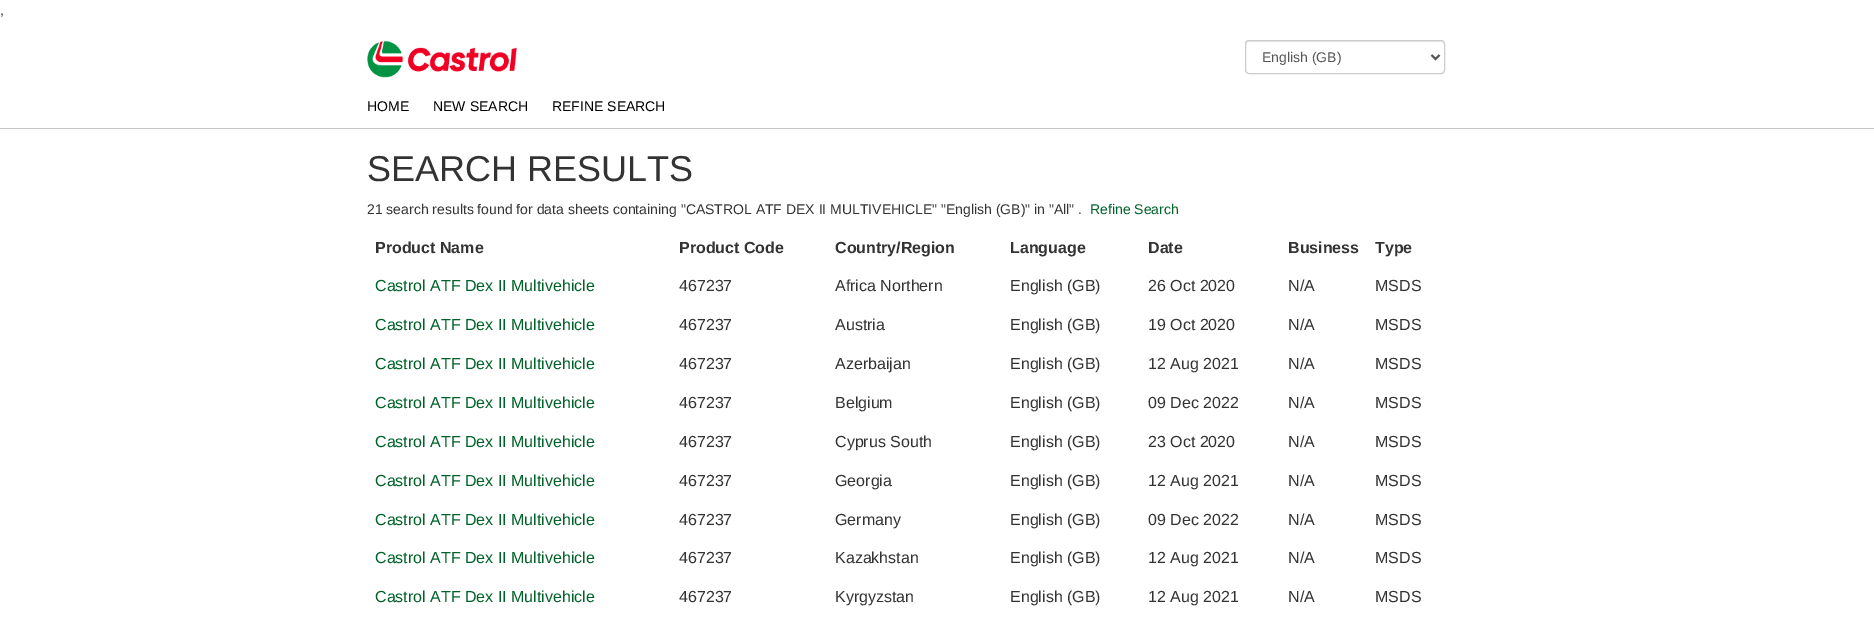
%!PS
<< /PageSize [1874 631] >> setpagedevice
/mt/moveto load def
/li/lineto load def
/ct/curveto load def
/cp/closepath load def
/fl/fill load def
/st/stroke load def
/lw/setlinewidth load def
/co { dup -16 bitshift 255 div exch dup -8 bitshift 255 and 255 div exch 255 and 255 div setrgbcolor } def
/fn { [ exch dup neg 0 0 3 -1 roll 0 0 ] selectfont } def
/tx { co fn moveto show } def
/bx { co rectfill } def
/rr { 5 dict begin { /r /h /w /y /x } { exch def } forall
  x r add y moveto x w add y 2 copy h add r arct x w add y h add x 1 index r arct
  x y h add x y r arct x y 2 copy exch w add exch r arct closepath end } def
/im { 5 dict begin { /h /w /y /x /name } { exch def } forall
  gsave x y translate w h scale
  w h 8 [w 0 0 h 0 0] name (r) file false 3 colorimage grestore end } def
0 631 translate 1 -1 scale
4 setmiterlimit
0 0 1874 631 16#FFFFFF bx
(media/1.raw) 367 40 150 38 im
16#ECECEC co
1249 42 mt 1441 42 li 1443 42 1444 43 1444 45 ct 1444 43 1443 41 1441 41 ct 1249 41 li 1247 41 1246 43 1246 45 ct 1246 43 1247 42 1249 42 ct cp fl
16#CCCCCC co
1245.5 40.5 199 33 3.5 rr st
16#555555 co
2 lw
1431.5 55 mt 1435.5 59 li 1439.5 55 li st
0 128 1874 1 16#C4C4C4 bx
(,) 0 15 /LiberationSans-Regular 14 16#333333 tx
(English \(GB\)) 1262 62 /LiberationSans-Regular 14 16#555555 tx
(HOME) 367 111 /LiberationSans-Regular 14 16#000000 tx
(NEW SEARCH) 433 111 /LiberationSans-Regular 14 16#000000 tx
(REFINE SEARCH) 552 111 /LiberationSans-Regular 14 16#000000 tx
(SEARCH RESULTS) 367 181 /LiberationSans-Regular 36 16#333333 tx
(21 search results found for data sheets containing "CASTROL ATF DEX II MULTIVEHICLE" "English \(GB\)" in "All" .) 367 214 /LiberationSans-Regular 14 16#333333 tx
(Refine Search) 1090 214 /LiberationSans-Regular 14 16#006228 tx
(Product Name) 375 253 /LiberationSans-Bold 16 16#333333 tx
(Product Code) 679 253 /LiberationSans-Bold 16 16#333333 tx
(Country/Region) 835 253 /LiberationSans-Bold 16 16#333333 tx
(Language) 1010 253 /LiberationSans-Bold 16 16#333333 tx
(Date) 1148 253 /LiberationSans-Bold 16 16#333333 tx
(Business) 1288 253 /LiberationSans-Bold 16 16#333333 tx
(Type) 1375 253 /LiberationSans-Bold 16 16#333333 tx
(Castrol ATF Dex II Multivehicle) 375 291 /LiberationSans-Regular 16 16#006228 tx
(467237) 679 291 /LiberationSans-Regular 16 16#333333 tx
(Africa Northern) 835 291 /LiberationSans-Regular 16 16#333333 tx
(English \(GB\)) 1010 291 /LiberationSans-Regular 16 16#333333 tx
(26 Oct 2020) 1148 291 /LiberationSans-Regular 16 16#333333 tx
(N/A) 1288 291 /LiberationSans-Regular 16 16#333333 tx
(MSDS) 1375 291 /LiberationSans-Regular 16 16#333333 tx
(Castrol ATF Dex II Multivehicle) 375 330 /LiberationSans-Regular 16 16#006228 tx
(467237) 679 330 /LiberationSans-Regular 16 16#333333 tx
(Austria) 835 330 /LiberationSans-Regular 16 16#333333 tx
(English \(GB\)) 1010 330 /LiberationSans-Regular 16 16#333333 tx
(19 Oct 2020) 1148 330 /LiberationSans-Regular 16 16#333333 tx
(N/A) 1288 330 /LiberationSans-Regular 16 16#333333 tx
(MSDS) 1375 330 /LiberationSans-Regular 16 16#333333 tx
(Castrol ATF Dex II Multivehicle) 375 369 /LiberationSans-Regular 16 16#006228 tx
(467237) 679 369 /LiberationSans-Regular 16 16#333333 tx
(Azerbaijan) 835 369 /LiberationSans-Regular 16 16#333333 tx
(English \(GB\)) 1010 369 /LiberationSans-Regular 16 16#333333 tx
(12 Aug 2021) 1148 369 /LiberationSans-Regular 16 16#333333 tx
(N/A) 1288 369 /LiberationSans-Regular 16 16#333333 tx
(MSDS) 1375 369 /LiberationSans-Regular 16 16#333333 tx
(Castrol ATF Dex II Multivehicle) 375 408 /LiberationSans-Regular 16 16#006228 tx
(467237) 679 408 /LiberationSans-Regular 16 16#333333 tx
(Belgium) 835 408 /LiberationSans-Regular 16 16#333333 tx
(English \(GB\)) 1010 408 /LiberationSans-Regular 16 16#333333 tx
(09 Dec 2022) 1148 408 /LiberationSans-Regular 16 16#333333 tx
(N/A) 1288 408 /LiberationSans-Regular 16 16#333333 tx
(MSDS) 1375 408 /LiberationSans-Regular 16 16#333333 tx
(Castrol ATF Dex II Multivehicle) 375 447 /LiberationSans-Regular 16 16#006228 tx
(467237) 679 447 /LiberationSans-Regular 16 16#333333 tx
(Cyprus South) 835 447 /LiberationSans-Regular 16 16#333333 tx
(English \(GB\)) 1010 447 /LiberationSans-Regular 16 16#333333 tx
(23 Oct 2020) 1148 447 /LiberationSans-Regular 16 16#333333 tx
(N/A) 1288 447 /LiberationSans-Regular 16 16#333333 tx
(MSDS) 1375 447 /LiberationSans-Regular 16 16#333333 tx
(Castrol ATF Dex II Multivehicle) 375 486 /LiberationSans-Regular 16 16#006228 tx
(467237) 679 486 /LiberationSans-Regular 16 16#333333 tx
(Georgia) 835 486 /LiberationSans-Regular 16 16#333333 tx
(English \(GB\)) 1010 486 /LiberationSans-Regular 16 16#333333 tx
(12 Aug 2021) 1148 486 /LiberationSans-Regular 16 16#333333 tx
(N/A) 1288 486 /LiberationSans-Regular 16 16#333333 tx
(MSDS) 1375 486 /LiberationSans-Regular 16 16#333333 tx
(Castrol ATF Dex II Multivehicle) 375 525 /LiberationSans-Regular 16 16#006228 tx
(467237) 679 525 /LiberationSans-Regular 16 16#333333 tx
(Germany) 835 525 /LiberationSans-Regular 16 16#333333 tx
(English \(GB\)) 1010 525 /LiberationSans-Regular 16 16#333333 tx
(09 Dec 2022) 1148 525 /LiberationSans-Regular 16 16#333333 tx
(N/A) 1288 525 /LiberationSans-Regular 16 16#333333 tx
(MSDS) 1375 525 /LiberationSans-Regular 16 16#333333 tx
(Castrol ATF Dex II Multivehicle) 375 563 /LiberationSans-Regular 16 16#006228 tx
(467237) 679 563 /LiberationSans-Regular 16 16#333333 tx
(Kazakhstan) 835 563 /LiberationSans-Regular 16 16#333333 tx
(English \(GB\)) 1010 563 /LiberationSans-Regular 16 16#333333 tx
(12 Aug 2021) 1148 563 /LiberationSans-Regular 16 16#333333 tx
(N/A) 1288 563 /LiberationSans-Regular 16 16#333333 tx
(MSDS) 1375 563 /LiberationSans-Regular 16 16#333333 tx
(Castrol ATF Dex II Multivehicle) 375 602 /LiberationSans-Regular 16 16#006228 tx
(467237) 679 602 /LiberationSans-Regular 16 16#333333 tx
(Kyrgyzstan) 835 602 /LiberationSans-Regular 16 16#333333 tx
(English \(GB\)) 1010 602 /LiberationSans-Regular 16 16#333333 tx
(12 Aug 2021) 1148 602 /LiberationSans-Regular 16 16#333333 tx
(N/A) 1288 602 /LiberationSans-Regular 16 16#333333 tx
(MSDS) 1375 602 /LiberationSans-Regular 16 16#333333 tx
showpage
